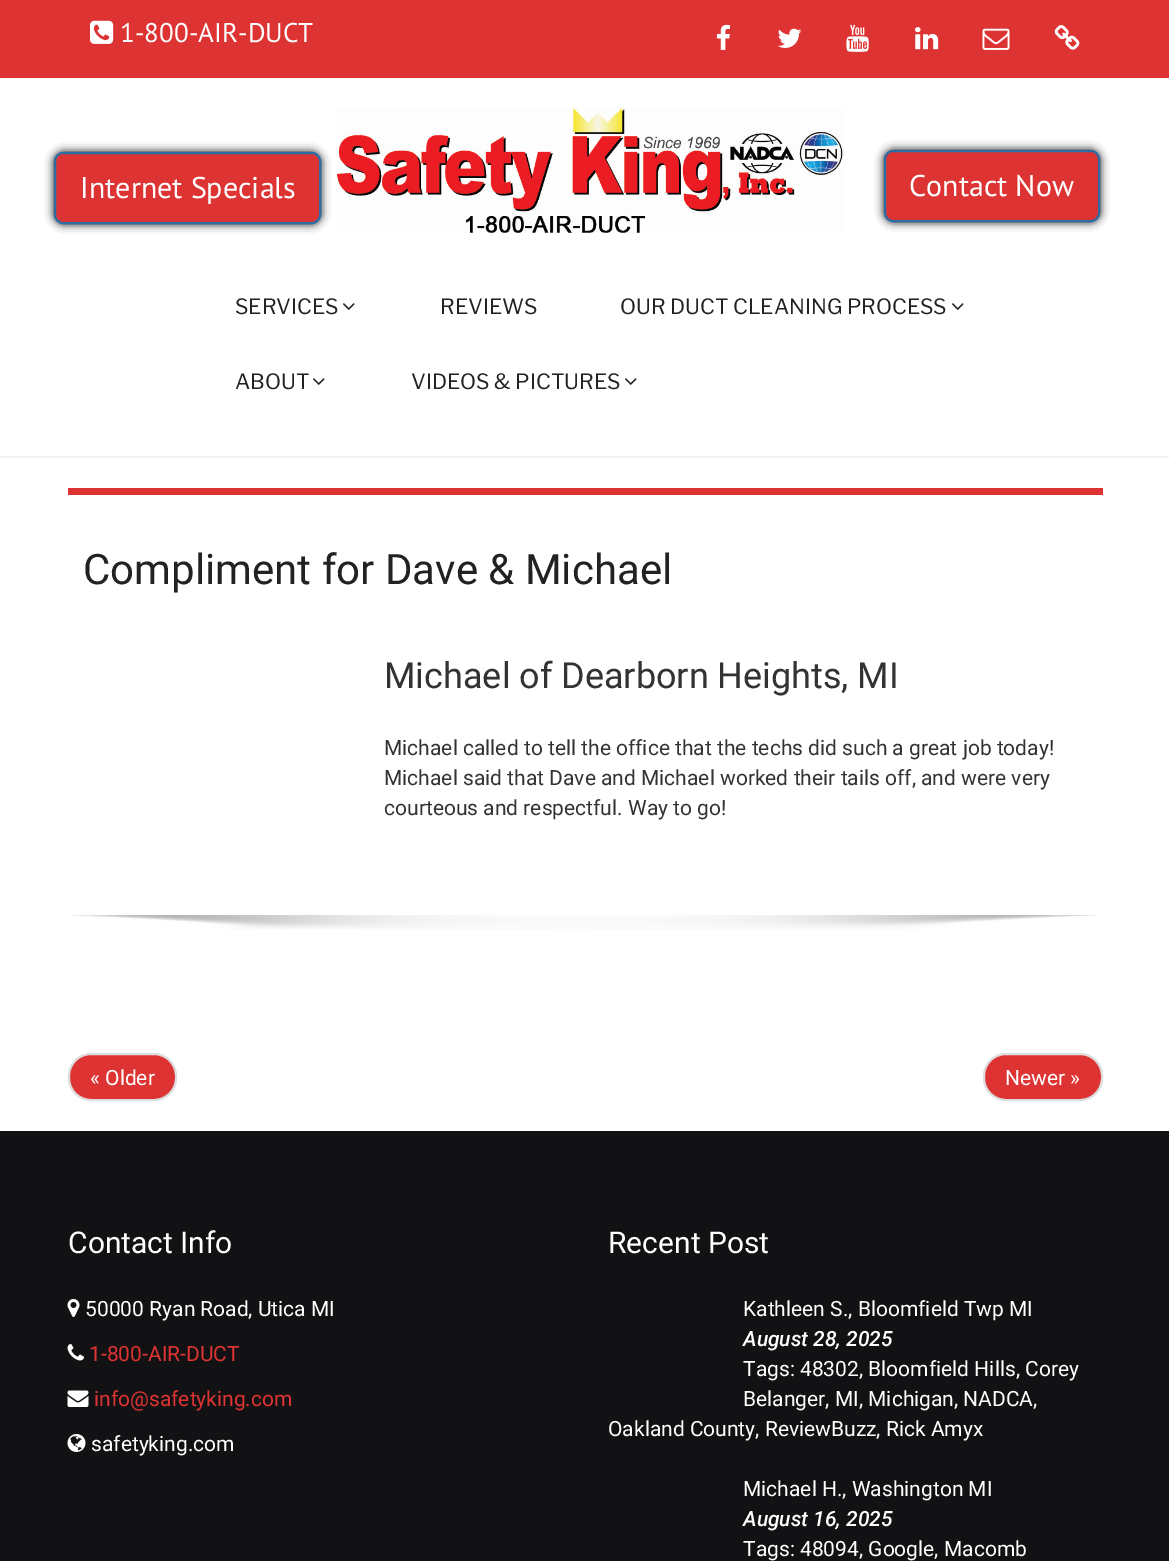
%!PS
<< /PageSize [1169 1561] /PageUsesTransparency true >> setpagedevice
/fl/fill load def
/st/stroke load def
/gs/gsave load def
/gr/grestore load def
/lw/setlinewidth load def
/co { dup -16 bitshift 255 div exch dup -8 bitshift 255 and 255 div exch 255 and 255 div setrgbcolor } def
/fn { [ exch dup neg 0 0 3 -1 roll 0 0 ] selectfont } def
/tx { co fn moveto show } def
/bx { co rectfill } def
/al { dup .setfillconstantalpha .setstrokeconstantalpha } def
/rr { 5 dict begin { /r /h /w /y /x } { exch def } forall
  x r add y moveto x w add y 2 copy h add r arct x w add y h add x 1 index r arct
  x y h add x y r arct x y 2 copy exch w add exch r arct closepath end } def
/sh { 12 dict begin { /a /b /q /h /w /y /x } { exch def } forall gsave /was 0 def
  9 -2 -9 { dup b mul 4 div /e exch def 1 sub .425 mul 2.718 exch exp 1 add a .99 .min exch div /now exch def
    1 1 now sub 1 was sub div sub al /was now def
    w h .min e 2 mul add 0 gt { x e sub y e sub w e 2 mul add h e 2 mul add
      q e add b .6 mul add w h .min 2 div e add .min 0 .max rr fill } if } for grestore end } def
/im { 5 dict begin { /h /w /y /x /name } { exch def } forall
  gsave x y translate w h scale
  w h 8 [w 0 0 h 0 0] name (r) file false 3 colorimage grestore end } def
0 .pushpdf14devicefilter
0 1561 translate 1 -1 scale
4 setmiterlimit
0 0 1169 1561 16#FFFFFF bx
0 0 1169 78 16#DD3333 bx
(media/1.raw) 90 20 24 24 im
(media/2.raw) 716 24 14 26 im
(media/3.raw) 777 28 25 20 im
(media/4.raw) 846 24 23 28 im
(media/5.raw) 915 27 24 23 im
(media/6.raw) 982 28 28 22 im
(media/7.raw) 1054 25 26 25 im
0 456 1169 2 16#F2F2F2 bx
16#000000 co
54 152 267 72 9 4.5 1 sh
16#DD3333 co
55 153 265 70 8 rr gs fl gr
16#2E6DA4 co
2 lw
st
(media/8.raw) 336 107 509 126 im
16#000000 co
884 150 216 72 9 4.5 1 sh
16#DD3333 co
885 151 214 70 8 rr gs fl gr
16#2E6DA4 co
st
(media/9.raw) 343 303 12 7 im
(media/9.raw) 952 303 12 7 im
(media/9.raw) 313 378 12 7 im
(media/9.raw) 625 378 12 7 im
68 488 1035 7 16#DD3333 bx
(media/10.raw) 70 915 1029 15 im
69 1054 107 46 22 rr gs fl gr
16#DDDDDD co
st
16#DD3333 co
984 1054 118 46 22 rr gs fl gr
16#DDDDDD co
st
0 1131 1169 430 16#121214 bx
(media/11.raw) 67 1299 13 18 im
(media/12.raw) 67 1344 17 17 im
(media/13.raw) 67 1390 22 17 im
(media/14.raw) 67 1434 19 18 im
(1-800-AIR-DUCT) 120 42 /PTSans-Regular 27 16#FFFFFF tx
(Internet Specials) 80 198 /PTSans-Regular 30 16#FFFFFF tx
(Contact Now) 909 196 /PTSans-Regular 30 16#FFFFFF tx
(SERVICES) 235 314 /LibreFranklin-Regular 21 16#222222 tx
(REVIEWS) 440 314 /LibreFranklin-Regular 21 16#222222 tx
(OUR DUCT CLEANING PROCESS) 620 314 /LibreFranklin-Regular 21 16#222222 tx
(ABOUT) 235 389 /LibreFranklin-Regular 21 16#222222 tx
(VIDEOS & PICTURES) 411 389 /LibreFranklin-Regular 21 16#222222 tx
(Compliment for Dave & Michael) 83 584 /Roboto-Regular 42 16#222222 tx
(Michael of Dearborn Heights, MI) 384 688 /Roboto-Regular 36 16#333333 tx
(Michael called to tell the office that the techs did such a great job today!) 384 755 /Roboto-Regular 21 16#333333 tx
(Michael said that Dave and Michael worked their tails off, and were very) 384 785 /Roboto-Regular 21 16#333333 tx
(courteous and respectful. Way to go!) 384 815 /Roboto-Regular 21 16#333333 tx
(« Older) 90 1085 /Roboto-Regular 21 16#FFFFFF tx
(Newer ») 1005 1085 /Roboto-Regular 21 16#FFFFFF tx
(Contact Info) 68 1253 /Roboto-Regular 30 16#FFFFFF tx
(50000 Ryan Road, Utica MI) 85 1316 /Roboto-Regular 21 16#FFFFFF tx
(1-800-AIR-DUCT) 89 1361 /Roboto-Regular 21 16#DD3333 tx
(info@safetyking.com) 94 1406 /Roboto-Regular 21 16#DD3333 tx
(safetyking.com) 91 1451 /Roboto-Regular 21 16#FFFFFF tx
(Recent Post) 608 1253 /Roboto-Regular 30 16#FFFFFF tx
(Kathleen S., Bloomfield Twp MI) 743 1316 /Roboto-Regular 21 16#FFFFFF tx
(August 28, 2025) 743 1346 /Roboto-MediumItalic 21 16#FFFFFF tx
(Tags: 48302, Bloomfield Hills, Corey) 743 1376 /Roboto-Regular 21 16#FFFFFF tx
(Belanger, MI, Michigan, NADCA,) 743 1406 /Roboto-Regular 21 16#FFFFFF tx
(Oakland County, ReviewBuzz, Rick Amyx) 608 1436 /Roboto-Regular 21 16#FFFFFF tx
(Michael H., Washington MI) 743 1496 /Roboto-Regular 21 16#FFFFFF tx
(August 16, 2025) 743 1526 /Roboto-MediumItalic 21 16#FFFFFF tx
(Tags: 48094, Google, Macomb) 743 1556 /Roboto-Regular 21 16#FFFFFF tx
.poppdf14devicefilter showpage
